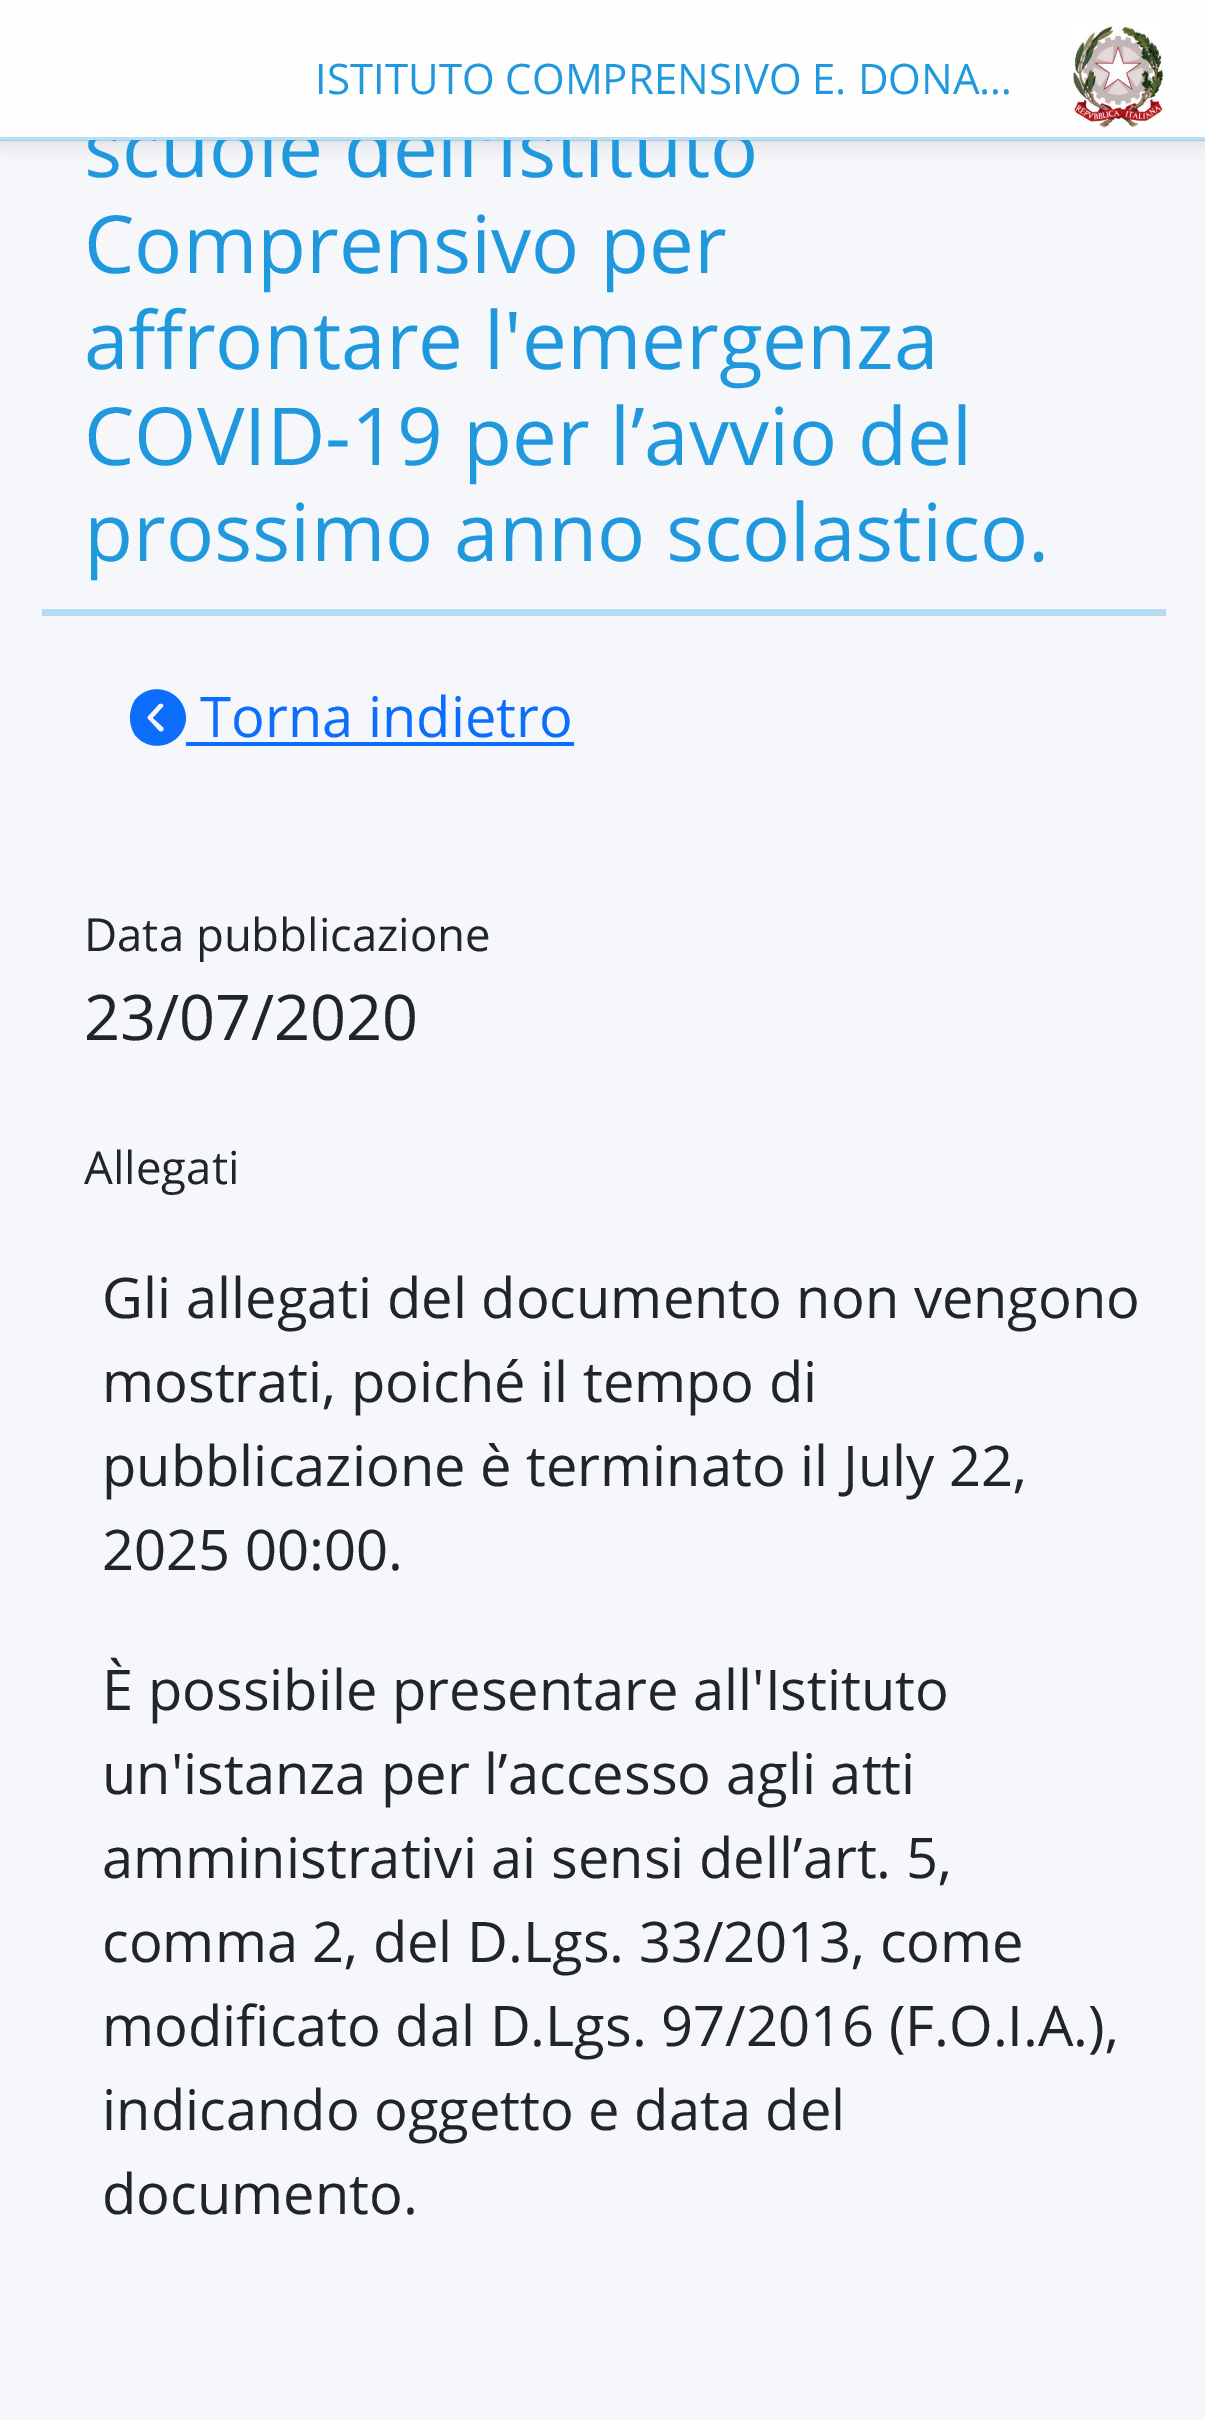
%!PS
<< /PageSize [1205 2420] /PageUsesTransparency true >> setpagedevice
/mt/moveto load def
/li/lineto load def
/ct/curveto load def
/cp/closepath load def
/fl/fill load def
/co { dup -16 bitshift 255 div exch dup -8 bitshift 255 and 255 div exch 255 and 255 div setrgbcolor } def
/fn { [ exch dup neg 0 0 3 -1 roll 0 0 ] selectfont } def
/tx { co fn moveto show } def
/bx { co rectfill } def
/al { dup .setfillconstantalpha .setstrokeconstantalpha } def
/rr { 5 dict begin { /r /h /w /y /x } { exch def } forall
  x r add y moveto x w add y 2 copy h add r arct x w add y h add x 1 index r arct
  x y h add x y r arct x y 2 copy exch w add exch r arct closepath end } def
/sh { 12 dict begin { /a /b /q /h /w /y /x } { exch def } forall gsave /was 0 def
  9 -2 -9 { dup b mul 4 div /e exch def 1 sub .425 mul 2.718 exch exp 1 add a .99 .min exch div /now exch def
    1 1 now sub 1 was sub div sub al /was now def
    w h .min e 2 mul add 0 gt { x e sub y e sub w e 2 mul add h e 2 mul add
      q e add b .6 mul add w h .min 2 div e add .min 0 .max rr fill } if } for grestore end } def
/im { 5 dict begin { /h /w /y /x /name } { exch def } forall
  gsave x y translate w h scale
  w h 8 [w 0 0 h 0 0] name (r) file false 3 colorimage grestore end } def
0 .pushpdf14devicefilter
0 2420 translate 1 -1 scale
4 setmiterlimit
0 0 1205 2420 16#F5F7FA bx
16#000000 co
0 0 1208 140 0 12 .15 sh
42 609 1124 7 16#B5DBF2 bx
16#0D6EFD co
186 718 mt 185 691 152 679 135 700 ct 132 705 130 711 130 718 ct 130 724 132 730 135 735 ct 152 756 185 744 186 718 ct cp 159 704 mt 161 703 165 704 163 707 ct 153 718 li 163 727 li 164 728 164 729 163 731 ct 162 732 160 732 159 731 ct 148 719 li 147 718 147 717 148 716 ct cp fl
186 742 388 4 16#0D6EFD bx
(scuole dell'Istituto) 84 177 /OpenSans-Regular 80 16#1F98DE tx
0 0 1205 140 16#FEFEFE bx
(ISTITUTO COMPRENSIVO E. DONA…) 315 94 /OpenSans-Regular 42 16#1F98DE tx
(media/1.raw) 1071 25 94 105 im
0.3 al
0 137 1205 4 16#1F98DE bx
1 al
(Comprensivo per) 84 273 /OpenSans-Regular 80 16#1F98DE tx
(affrontare l'emergenza) 84 369 /OpenSans-Regular 80 16#1F98DE tx
(COVID-19 per l’avvio del) 84 465 /OpenSans-Regular 80 16#1F98DE tx
(prossimo anno scolastico.) 84 561 /OpenSans-Regular 80 16#1F98DE tx
(Torna indietro) 200 737 /OpenSans-Regular 56 16#0D6EFD tx
(Data pubblicazione) 84 951 /OpenSans-Regular 45.5 16#212529 tx
(23/07/2020) 84 1040 /OpenSans-Regular 63 16#212529 tx
(Allegati) 84 1184 /OpenSans-Regular 45.5 16#212529 tx
(Gli allegati del documento non vengono) 102 1318 /OpenSans-Regular 56 16#212529 tx
(mostrati, poiché il tempo di) 102 1402 /OpenSans-Regular 56 16#212529 tx
(pubblicazione è terminato il July 22,) 102 1486 /OpenSans-Regular 56 16#212529 tx
(2025 00:00.) 102 1570 /OpenSans-Regular 56 16#212529 tx
(È possibile presentare all'Istituto) 102 1710 /OpenSans-Regular 56 16#212529 tx
(un'istanza per l’accesso agli atti) 102 1794 /OpenSans-Regular 56 16#212529 tx
(amministrativi ai sensi dell’art. 5,) 102 1878 /OpenSans-Regular 56 16#212529 tx
(comma 2, del D.Lgs. 33/2013, come) 102 1962 /OpenSans-Regular 56 16#212529 tx
(modificato dal D.Lgs. 97/2016 \(F.O.I.A.\),) 102 2046 /OpenSans-Regular 56 16#212529 tx
(indicando oggetto e data del) 102 2130 /OpenSans-Regular 56 16#212529 tx
(documento.) 102 2214 /OpenSans-Regular 56 16#212529 tx
.poppdf14devicefilter showpage
